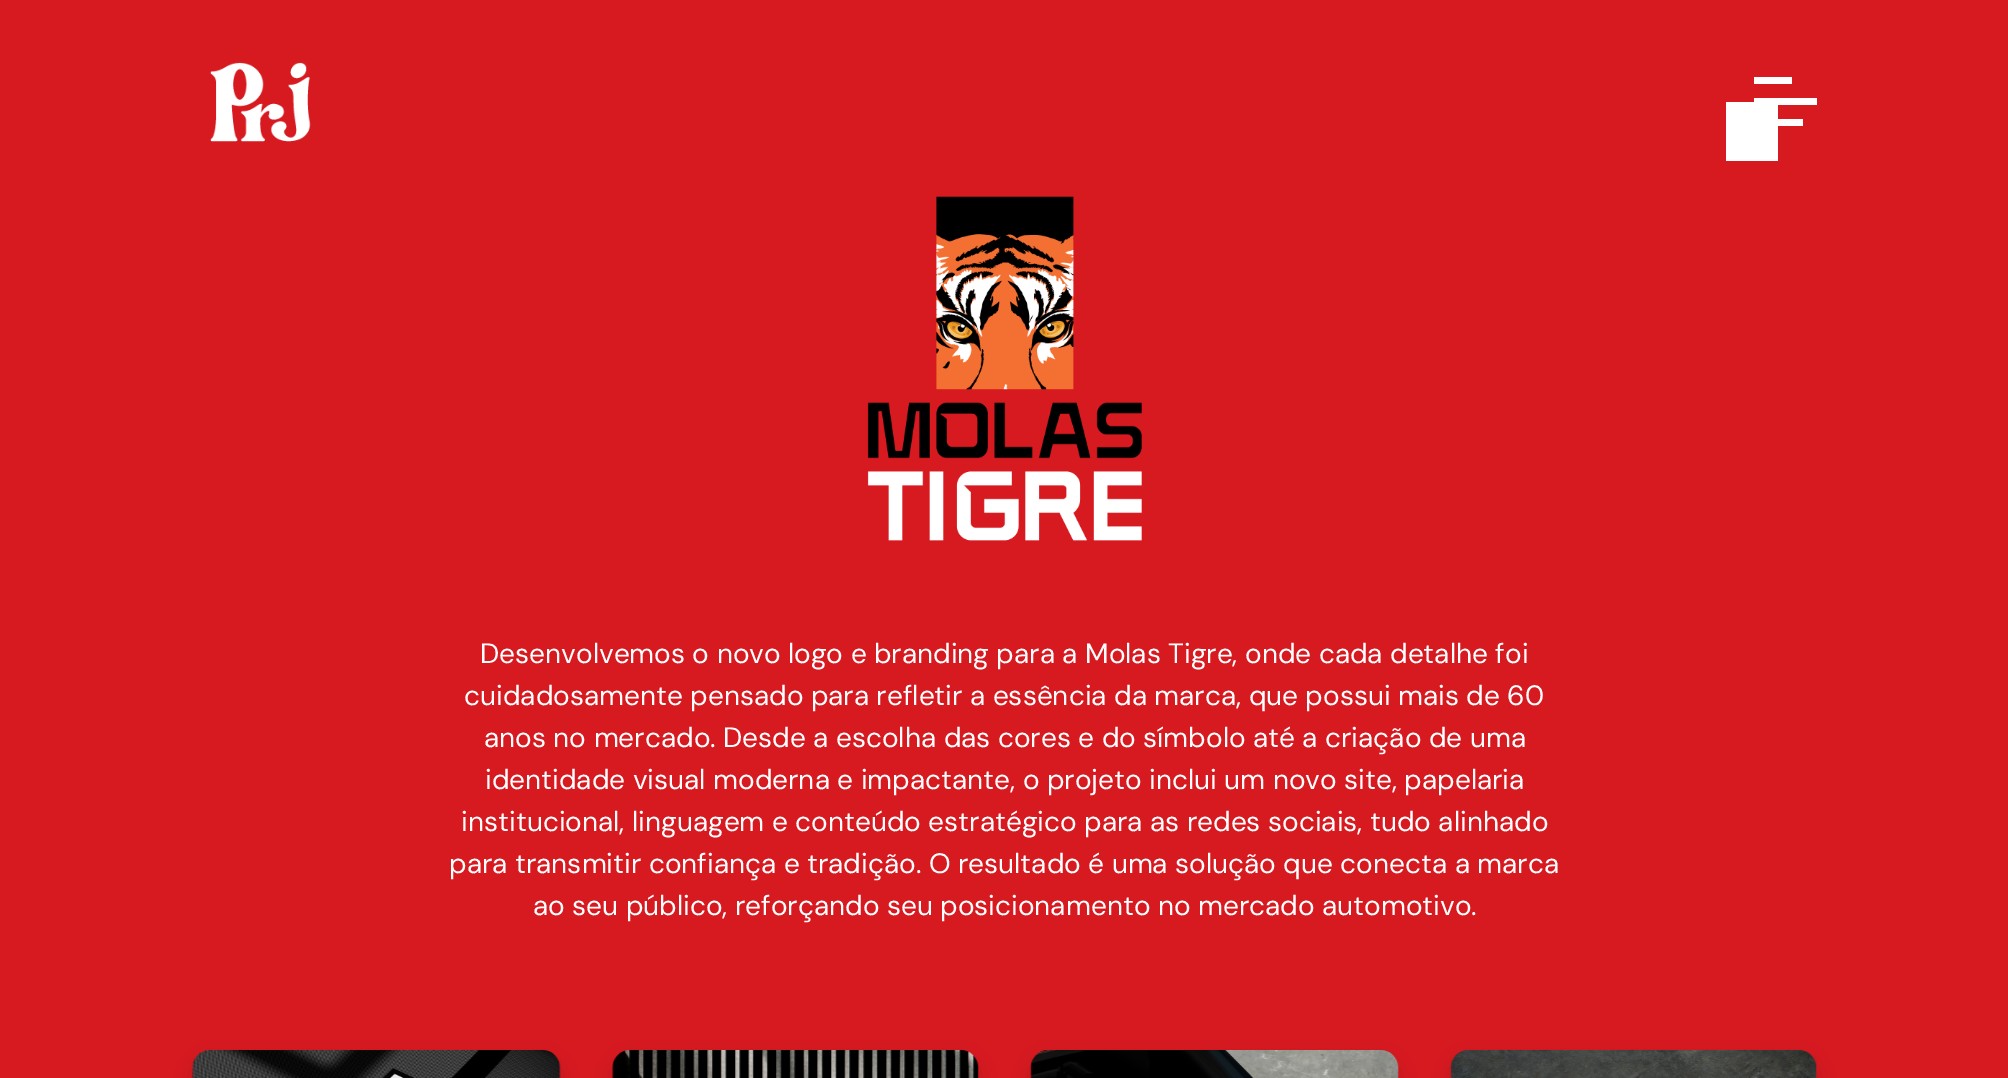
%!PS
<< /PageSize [2008 1078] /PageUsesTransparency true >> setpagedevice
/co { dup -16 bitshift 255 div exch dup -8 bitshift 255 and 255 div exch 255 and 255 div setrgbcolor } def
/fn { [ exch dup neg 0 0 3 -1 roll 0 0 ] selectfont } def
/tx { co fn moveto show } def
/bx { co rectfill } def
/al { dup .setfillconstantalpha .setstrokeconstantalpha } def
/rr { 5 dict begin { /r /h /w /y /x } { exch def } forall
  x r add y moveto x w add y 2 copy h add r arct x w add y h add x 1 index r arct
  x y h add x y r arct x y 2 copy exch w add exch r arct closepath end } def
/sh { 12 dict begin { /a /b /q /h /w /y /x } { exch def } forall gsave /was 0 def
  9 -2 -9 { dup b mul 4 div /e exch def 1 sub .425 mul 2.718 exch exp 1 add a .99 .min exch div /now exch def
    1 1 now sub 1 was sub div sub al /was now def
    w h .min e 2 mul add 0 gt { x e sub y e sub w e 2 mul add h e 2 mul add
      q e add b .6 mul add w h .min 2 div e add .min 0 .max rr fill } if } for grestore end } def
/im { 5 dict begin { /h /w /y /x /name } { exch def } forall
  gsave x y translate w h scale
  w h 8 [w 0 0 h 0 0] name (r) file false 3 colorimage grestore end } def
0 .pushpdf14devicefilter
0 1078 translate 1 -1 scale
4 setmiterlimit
0 0 2008 1078 16#D71920 bx
(media/1.raw) 210 62 101 80 im
1754 98 63 7 16#FFFFFF bx
1726 102 52 59 16#FFFFFF bx
1754 77 38 7 16#FFFFFF bx
1778 119 25 7 16#FFFFFF bx
(media/2.raw) 867 196 275 345 im
16#000000 co
193 1059 367 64 18 9 .15 sh
(media/3.raw) 192 1050 369 28 im
613 1059 365 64 18 9 .15 sh
(media/4.raw) 612 1050 367 28 im
1031 1059 367 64 18 9 .15 sh
(media/5.raw) 1030 1050 369 28 im
1451 1059 366 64 18 9 .15 sh
(media/6.raw) 1450 1050 367 28 im
(Desenvolvemos o novo logo e branding para a Molas Tigre, onde cada detalhe foi) 480 663 /DMSans-Regular 28 16#FFFFFF tx
(cuidadosamente pensado para refletir a essência da marca, que possui mais de 60) 464 705 /DMSans-Regular 28 16#FFFFFF tx
(anos no mercado. Desde a escolha das cores e do símbolo até a criação de uma) 484 747 /DMSans-Regular 28 16#FFFFFF tx
(identidade visual moderna e impactante, o projeto inclui um novo site, papelaria) 485 789 /DMSans-Regular 28 16#FFFFFF tx
(institucional, linguagem e conteúdo estratégico para as redes sociais, tudo alinhado) 461 831 /DMSans-Regular 28 16#FFFFFF tx
(para transmitir confiança e tradição. O resultado é uma solução que conecta a marca) 449 873 /DMSans-Regular 28 16#FFFFFF tx
(ao seu público, reforçando seu posicionamento no mercado automotivo.) 533 915 /DMSans-Regular 28 16#FFFFFF tx
.poppdf14devicefilter showpage
